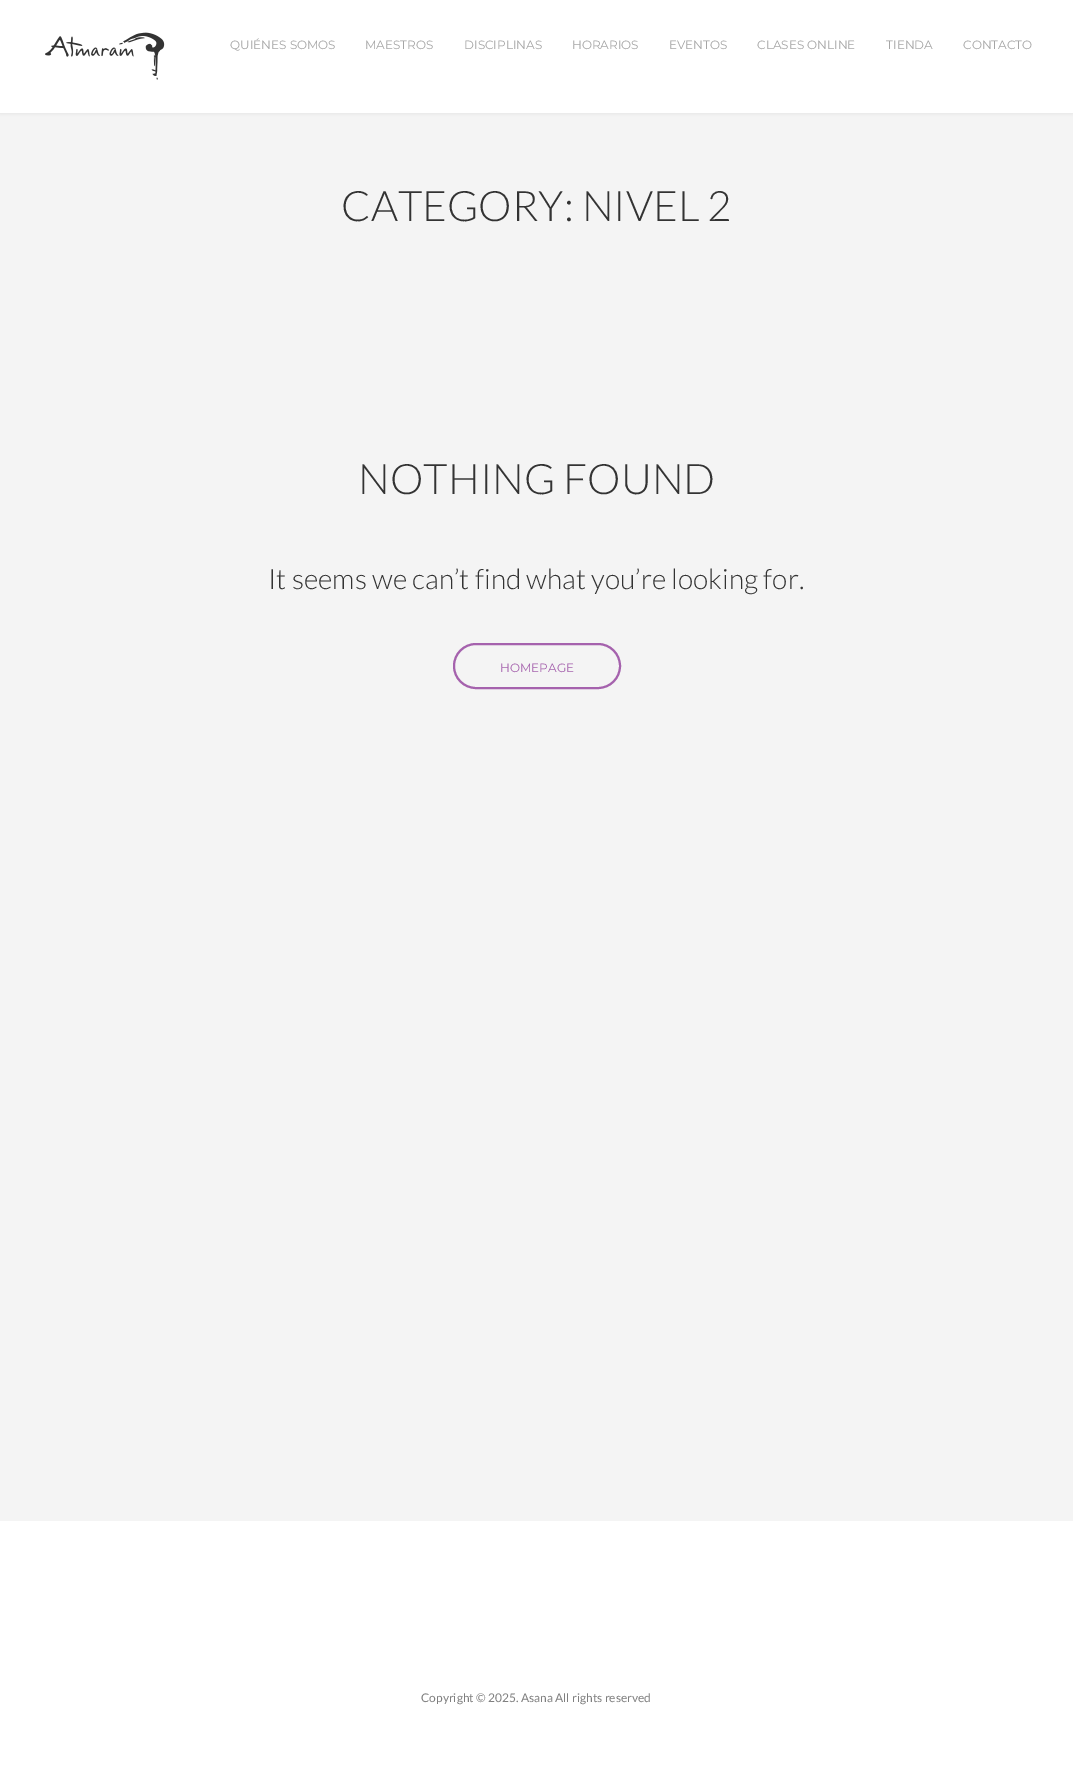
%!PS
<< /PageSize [1073 1783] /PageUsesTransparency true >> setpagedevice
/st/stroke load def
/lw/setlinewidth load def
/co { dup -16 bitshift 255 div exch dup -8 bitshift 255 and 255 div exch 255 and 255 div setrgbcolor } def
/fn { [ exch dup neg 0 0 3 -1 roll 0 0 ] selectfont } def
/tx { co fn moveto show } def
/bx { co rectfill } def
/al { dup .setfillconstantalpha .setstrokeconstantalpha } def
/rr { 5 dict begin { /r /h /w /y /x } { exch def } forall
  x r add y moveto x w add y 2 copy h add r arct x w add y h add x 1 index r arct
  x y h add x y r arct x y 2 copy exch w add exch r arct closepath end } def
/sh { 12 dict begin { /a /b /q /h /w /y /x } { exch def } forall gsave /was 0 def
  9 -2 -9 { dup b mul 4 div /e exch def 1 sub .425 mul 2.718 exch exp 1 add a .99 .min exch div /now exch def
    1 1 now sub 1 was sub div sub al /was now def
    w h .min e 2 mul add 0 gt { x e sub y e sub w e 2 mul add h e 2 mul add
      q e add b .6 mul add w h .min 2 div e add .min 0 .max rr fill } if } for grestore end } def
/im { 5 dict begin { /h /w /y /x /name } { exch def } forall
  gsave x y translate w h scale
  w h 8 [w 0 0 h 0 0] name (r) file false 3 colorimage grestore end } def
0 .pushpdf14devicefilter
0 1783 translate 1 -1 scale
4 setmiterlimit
0 0 1073 1783 16#F4F4F4 bx
16#000000 co
0 1 1073 113 0 1.5 .06 sh
0 0 1073 113 16#FFFFFF bx
(media/1.raw) 45 32 120 48 im
16#A562AD co
2 lw
454 644 166 44 22 rr st
0 1521 1073 262 16#FFFFFF bx
(QUIÉNES SOMOS) 230 49 /Montserrat-Regular 12 16#A5A5A5 tx
(MAESTROS) 365 49 /Montserrat-Regular 12 16#A5A5A5 tx
(DISCIPLINAS) 464 49 /Montserrat-Regular 12 16#A5A5A5 tx
(HORARIOS) 572 49 /Montserrat-Regular 12 16#A5A5A5 tx
(EVENTOS) 669 49 /Montserrat-Regular 12 16#A5A5A5 tx
(CLASES ONLINE) 757 49 /Montserrat-Regular 12 16#A5A5A5 tx
(TIENDA) 886 49 /Montserrat-Regular 12 16#A5A5A5 tx
(CONTACTO) 963 49 /Montserrat-Regular 12 16#A5A5A5 tx
(CATEGORY: NIVEL 2) 341 221 /Lato-Light 42 16#333333 tx
(NOTHING FOUND) 358 494 /Lato-Light 42 16#333333 tx
(It seems we can’t find what you’re looking for.) 268 589 /Lato-Light 28 16#333333 tx
(HOMEPAGE) 500 672 /Montserrat-Regular 12 16#A562AD tx
(Copyright © 2025. Asana All rights reserved) 421 1702 /Lato-Regular 12 16#7F7F7F tx
.poppdf14devicefilter showpage
